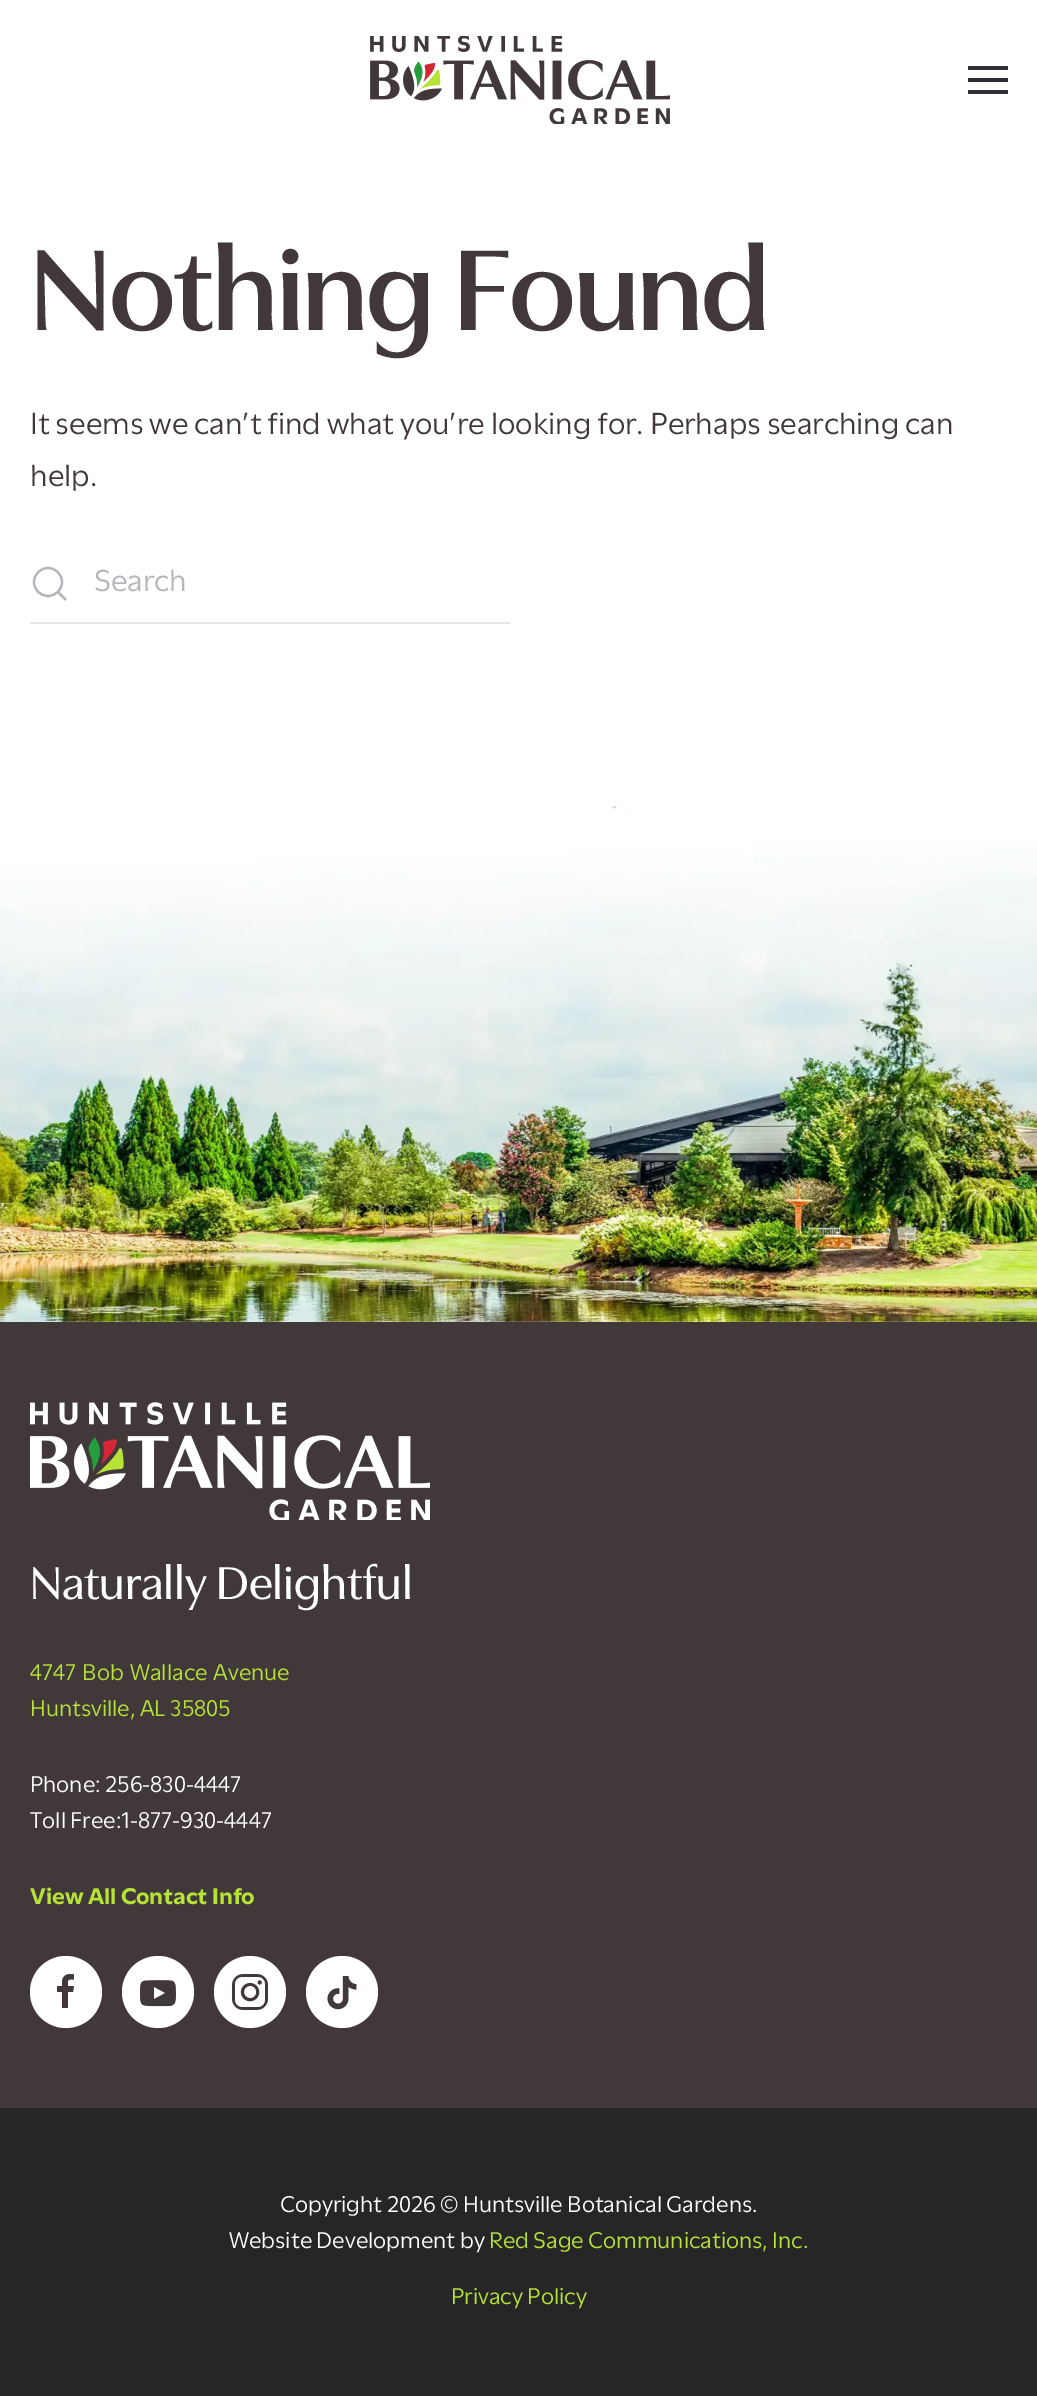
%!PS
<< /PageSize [1037 2396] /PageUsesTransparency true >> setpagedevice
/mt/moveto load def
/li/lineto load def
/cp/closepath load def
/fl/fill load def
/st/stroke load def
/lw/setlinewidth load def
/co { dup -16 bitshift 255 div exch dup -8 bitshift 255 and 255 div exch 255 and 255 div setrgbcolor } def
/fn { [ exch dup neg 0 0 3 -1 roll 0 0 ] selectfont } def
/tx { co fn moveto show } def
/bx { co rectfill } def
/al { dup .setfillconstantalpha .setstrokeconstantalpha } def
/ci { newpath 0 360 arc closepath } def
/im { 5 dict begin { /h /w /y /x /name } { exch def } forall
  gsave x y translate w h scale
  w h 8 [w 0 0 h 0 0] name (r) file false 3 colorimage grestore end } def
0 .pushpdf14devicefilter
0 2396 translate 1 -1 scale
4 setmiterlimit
0 0 1037 2396 16#FFFFFF bx
(media/1.raw) 370 36 300 88 im
968 66 40 4 16#2D2E33 bx
968 78 40 4 16#2D2E33 bx
968 90 40 4 16#2D2E33 bx
16#B4B5BA co
2.2 lw
48 582 14 ci st
58 592 mt 66 600 li cp st
30 622 480 2 16#E5E5E7 bx
(media/2.raw) 0 806 1037 516 im
0 1322 1037 786 16#41383A bx
(media/3.raw) 30 1402 400 118 im
16#FFFFFF co
66 1992 36 ci fl
0.1 al
2 lw
66 1992 35 ci st
1 al
(media/4.raw) 57 1974 17 34 im
158 1992 36 ci fl
0.1 al
158 1992 35 ci st
1 al
(media/5.raw) 140 1980 36 27 im
250 1992 36 ci fl
0.1 al
250 1992 35 ci st
1 al
(media/6.raw) 232 1974 36 36 im
342 1992 36 ci fl
0.1 al
342 1992 35 ci st
1 al
(media/7.raw) 327 1976 30 34 im
0 2108 1037 288 16#262626 bx
/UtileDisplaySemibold-SemiBold 120 fn
16#41383A co
30 330 mt -2 0 (Nothing Found) ashow
(It seems we can’t find what you’re looking for. Perhaps searching can) 30 434 /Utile-Regular 32 16#41383A tx
(help.) 30 486 /Utile-Regular 32 16#41383A tx
(Search) 94 591 /Utile-Regular 32 16#B4B5BA tx
(Naturally Delightful) 30 1599 /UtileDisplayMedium-Medium 48 16#FFFFFF tx
/Utile-Regular 24 fn
16#B6E335 co
30 1680 mt 1.5 0 32 (4747 Bob Wallace Avenue) widthshow
(Huntsville, AL 35805) 30 1716 /Utile-Regular 24 16#B6E335 tx
(Phone: 256-830-4447) 30 1792 /Utile-Regular 24 16#FFFFFF tx
(Toll Free:1-877-930-4447) 30 1828 /Utile-Regular 24 16#FFFFFF tx
(View All Contact Info) 30 1904 /Utile-Bold 24 16#B6E335 tx
(Copyright 2026 © Huntsville Botanical Gardens.) 280 2212 /Utile-Regular 24 16#FFFFFF tx
(Website Development by) 229 2248 /Utile-Regular 24 16#FFFFFF tx
(Red Sage Communications, Inc.) 489 2248 /Utile-Regular 24 16#B6E335 tx
(Privacy Policy) 451 2304 /Utile-Regular 24 16#B6E335 tx
.poppdf14devicefilter showpage
